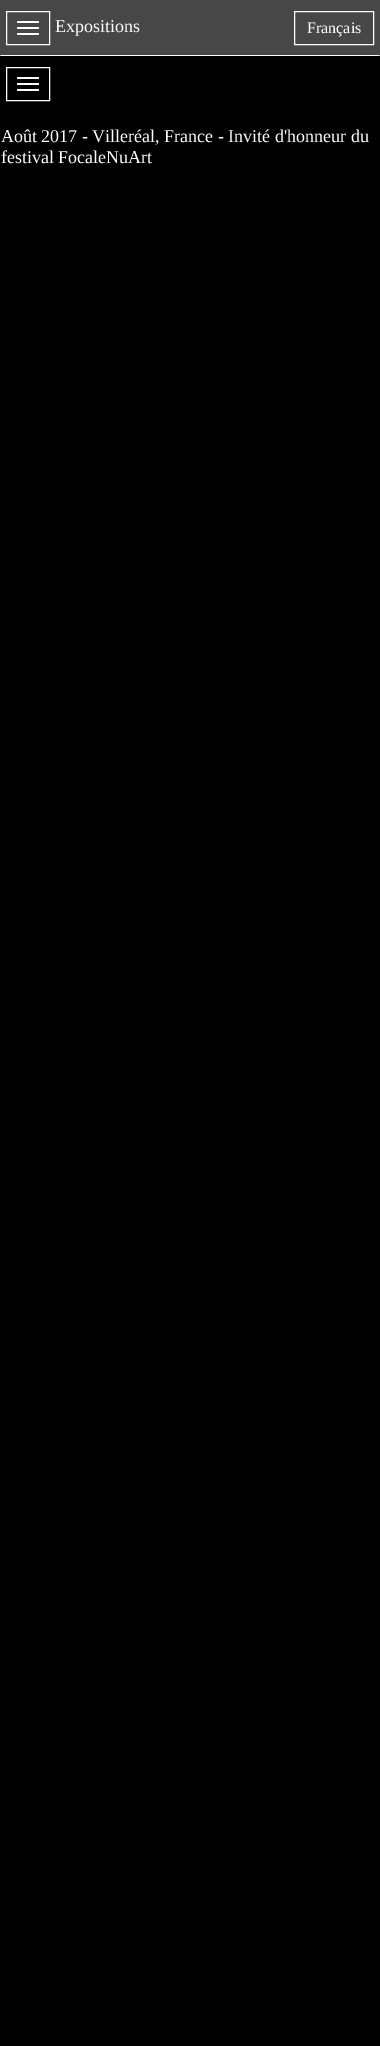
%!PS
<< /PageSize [380 2046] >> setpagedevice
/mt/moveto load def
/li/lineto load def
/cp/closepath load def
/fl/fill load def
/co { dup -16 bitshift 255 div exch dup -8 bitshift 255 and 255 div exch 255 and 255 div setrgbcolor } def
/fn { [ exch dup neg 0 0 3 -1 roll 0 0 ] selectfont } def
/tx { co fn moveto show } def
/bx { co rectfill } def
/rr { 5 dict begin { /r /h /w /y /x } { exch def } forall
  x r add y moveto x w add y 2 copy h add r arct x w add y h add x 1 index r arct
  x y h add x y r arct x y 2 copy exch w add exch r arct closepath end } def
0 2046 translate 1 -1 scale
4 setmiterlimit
0 0 380 2046 16#000000 bx
0 0 380 56 16#474747 bx
16#FFFFFF co
380 56 mt 0 56 li 1 55 li 379 55 li cp fl
6.5 11.5 43 33 rectstroke
17 21 22 2 1 rr fl
17 27 22 2 1 rr fl
17 33 22 2 1 rr fl
294.5 11.5 79 33 rectstroke
6.5 67.5 43 33 rectstroke
17 77 22 2 1 rr fl
17 83 22 2 1 rr fl
17 89 22 2 1 rr fl
(Expositions) 55 32 /LiberationSerif-Regular 18 16#FFFFFF tx
(Français) 307 33 /LiberationSerif-Regular 16 16#FFFFFF tx
(Août 2017 - Villeréal, France - Invité d'honneur du) 1 142 /LiberationSerif-Regular 18 16#FFFFFF tx
(festival FocaleNuArt) 1 163 /LiberationSerif-Regular 18 16#FFFFFF tx
showpage
